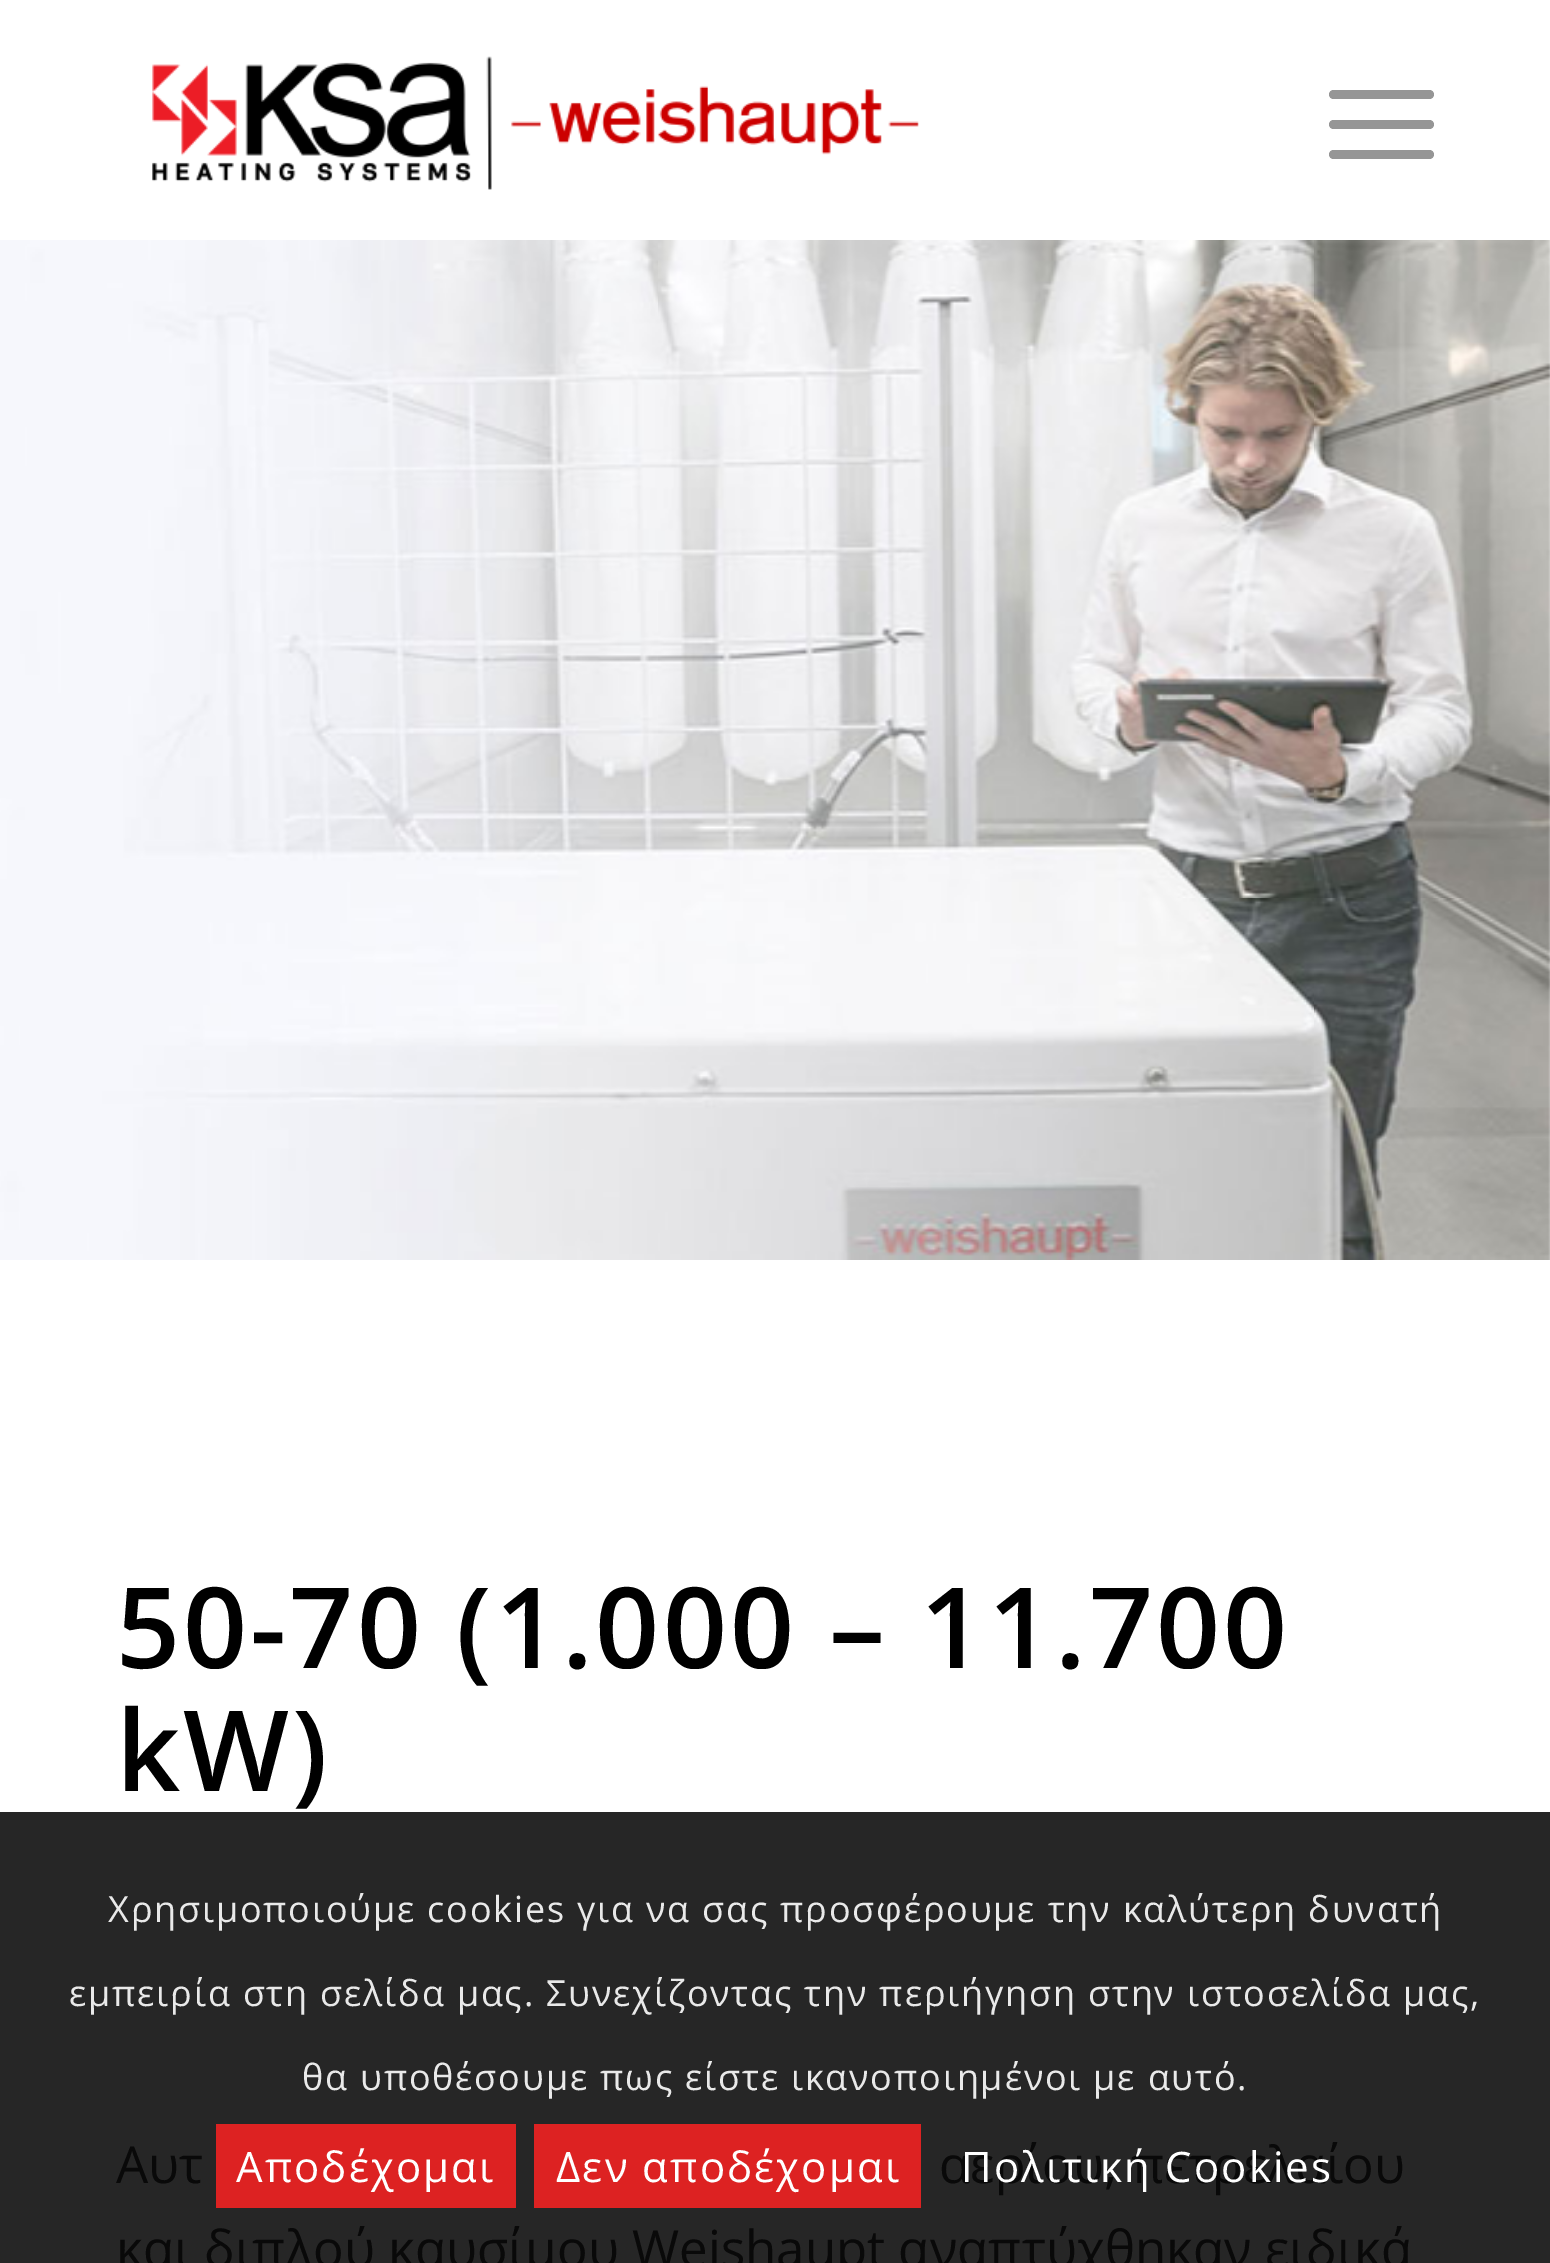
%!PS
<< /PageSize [1550 2263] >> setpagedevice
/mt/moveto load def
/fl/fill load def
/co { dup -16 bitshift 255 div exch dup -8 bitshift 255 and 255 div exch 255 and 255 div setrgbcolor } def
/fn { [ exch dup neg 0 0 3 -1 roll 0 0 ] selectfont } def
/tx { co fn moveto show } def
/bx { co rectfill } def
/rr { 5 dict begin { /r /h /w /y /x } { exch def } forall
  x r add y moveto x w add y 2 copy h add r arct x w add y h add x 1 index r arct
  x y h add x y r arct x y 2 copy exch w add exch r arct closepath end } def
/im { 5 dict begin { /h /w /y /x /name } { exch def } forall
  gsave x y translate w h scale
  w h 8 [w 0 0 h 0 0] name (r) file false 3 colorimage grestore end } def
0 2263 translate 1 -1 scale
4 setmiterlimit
0 0 1550 2263 16#FFFFFF bx
0 1812 1550 451 16#262626 bx
(media/1.raw) 152 56 767 134 im
16#969696 co
1329 120 105 9 4.5 rr fl
1329 90 105 9 4.5 rr fl
1329 150 105 9 4.5 rr fl
(media/2.raw) 0 240 1550 1020 im
216 2124 300 84 16#DD2222 bx
534 2124 387 84 16#DD2222 bx
/OpenSans-SemiBold 112.25 fn
16#000000 co
116 1668 mt 3 0 (50-70 \(1.000 – 11.700) ashow
116 1791 mt 3 0 (kW\)) ashow
(Αυτ) 116 2183 /OpenSans-Regular 51 16#090909 tx
(αερίου, πετρελαίου) 939 2183 /OpenSans-Regular 51 16#090909 tx
(και διπλού καυσίμου Weishaupt αναπτύχθηκαν ειδικά) 116 2267 /OpenSans-Regular 51 16#090909 tx
/OpenSans-Regular 36 fn
16#E9E9E9 co
108 1922 mt 1.8 0 (Χρησιμοποιούμε cookies για να σας προσφέρουμε την καλύτερη δυνατή) ashow
69 2006 mt 1.8 0 (εμπειρία στη σελίδα μας. Συνεχίζοντας την περιήγηση στην ιστοσελίδα μας,) ashow
302 2090 mt 1.8 0 (θα υποθέσουμε πως είστε ικανοποιημένοι με αυτό.) ashow
/OpenSans-Regular 42 fn
16#FFFFFF co
236 2182 mt 2.1 0 (Αποδέχομαι) ashow
556 2182 mt 2.1 0 (Δεν αποδέχομαι) ashow
961 2182 mt 2.1 0 (Πολιτική Cookies) ashow
showpage
